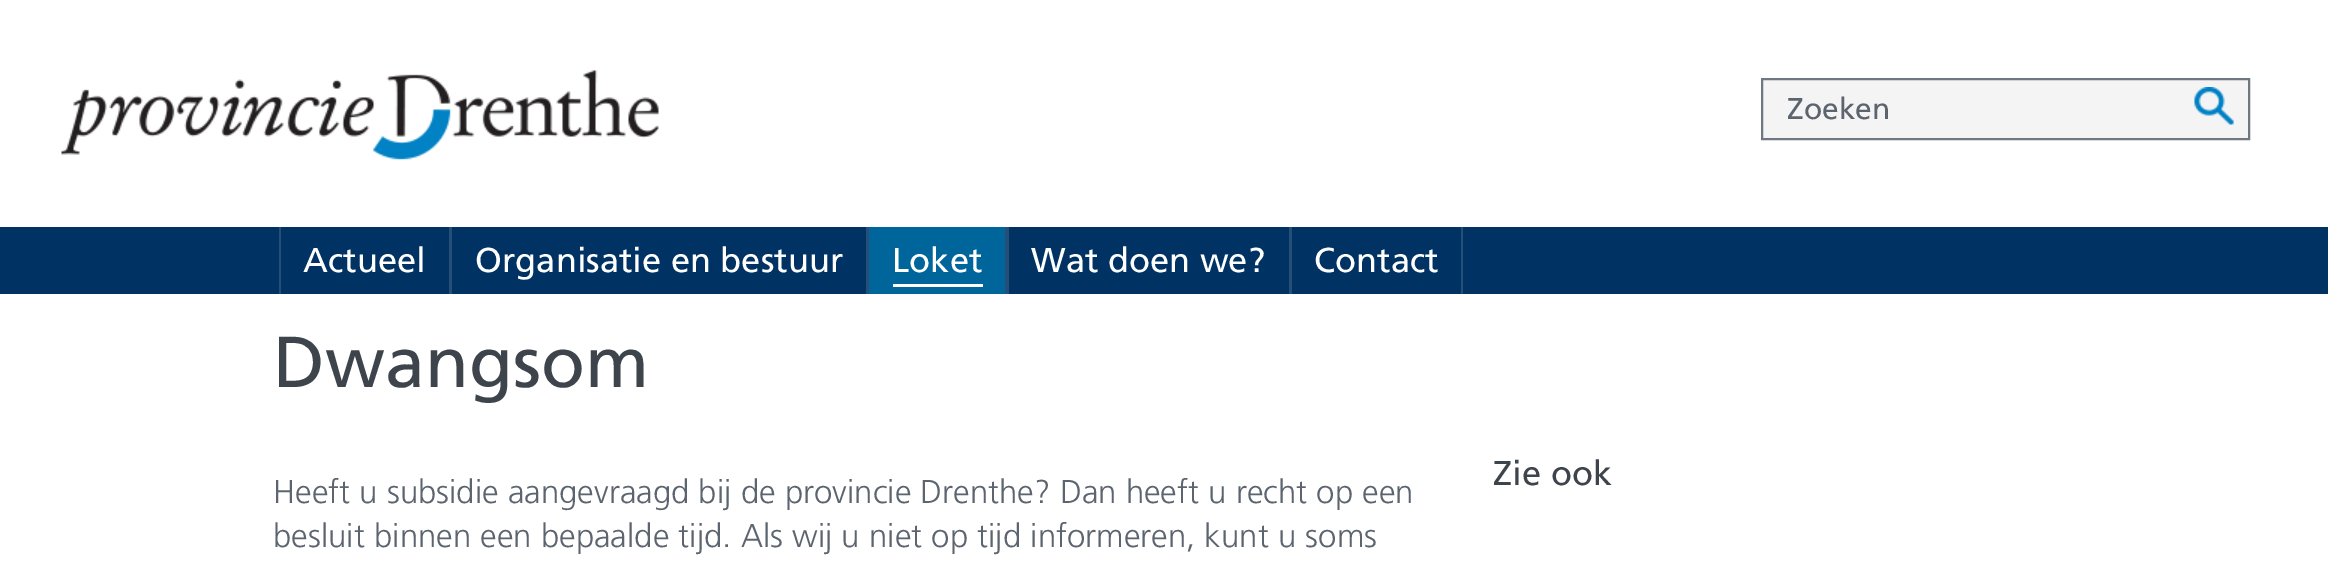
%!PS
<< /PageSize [2328 568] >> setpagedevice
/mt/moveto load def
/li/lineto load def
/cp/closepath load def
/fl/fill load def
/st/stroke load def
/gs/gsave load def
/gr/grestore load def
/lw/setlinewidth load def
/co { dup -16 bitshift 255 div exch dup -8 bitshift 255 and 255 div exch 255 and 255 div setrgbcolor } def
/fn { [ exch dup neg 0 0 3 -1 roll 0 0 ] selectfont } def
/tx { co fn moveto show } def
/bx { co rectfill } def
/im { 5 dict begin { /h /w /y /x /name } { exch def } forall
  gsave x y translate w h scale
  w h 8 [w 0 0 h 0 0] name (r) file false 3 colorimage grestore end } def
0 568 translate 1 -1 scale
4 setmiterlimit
0 0 2328 568 16#FFFFFF bx
(media/1.raw) 61 70 598 90 im
16#F4F4F4 co
1762 79 mt 2249 79 li 2249 139 li 1762 139 li cp gs fl gr
16#6F7780 co
2 lw
st
(media/2.raw) 2194 87 40 38 im
0 227 2328 67 16#003263 bx
449 227 3 67 16#244F79 bx
279 227 2 67 16#244F79 bx
866 227 3 67 16#244F79 bx
1005 227 4 67 16#244F79 bx
869 227 136 67 16#00659B bx
893 284 90 3 16#FFFFFF bx
1289 227 3 67 16#244F79 bx
1461 227 2 67 16#244F79 bx
(Zoeken) 1787 119 /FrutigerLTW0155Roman-Regular 30 16#5B646F tx
(Actueel) 303 272 /FrutigerLTW0155Roman-Regular 34.5 16#FFFFFF tx
(Organisatie en bestuur) 475 272 /FrutigerLTW0155Roman-Regular 34.5 16#FFFFFF tx
(Loket) 892 272 /FrutigerLTW0155Roman-Regular 34.5 16#FFFFFF tx
(Wat doen we?) 1031 272 /FrutigerLTW0155Roman-Regular 34.5 16#FFFFFF tx
(Contact) 1314 272 /FrutigerLTW0155Roman-Regular 34.5 16#FFFFFF tx
(Dwangsom) 273 387 /FrutigerLTW0155Roman-Regular 72 16#3E444B tx
(Zie ook) 1493 485 /FrutigerLTW0155Roman-Regular 34.5 16#3E444B tx
(Heeft u subsidie aangevraagd bij de provincie Drenthe? Dan heeft u recht op een) 273 503 /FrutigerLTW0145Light-Light 33 16#5B646F tx
(besluit binnen een bepaalde tijd. Als wij u niet op tijd informeren, kunt u soms) 273 547 /FrutigerLTW0145Light-Light 33 16#5B646F tx
showpage
